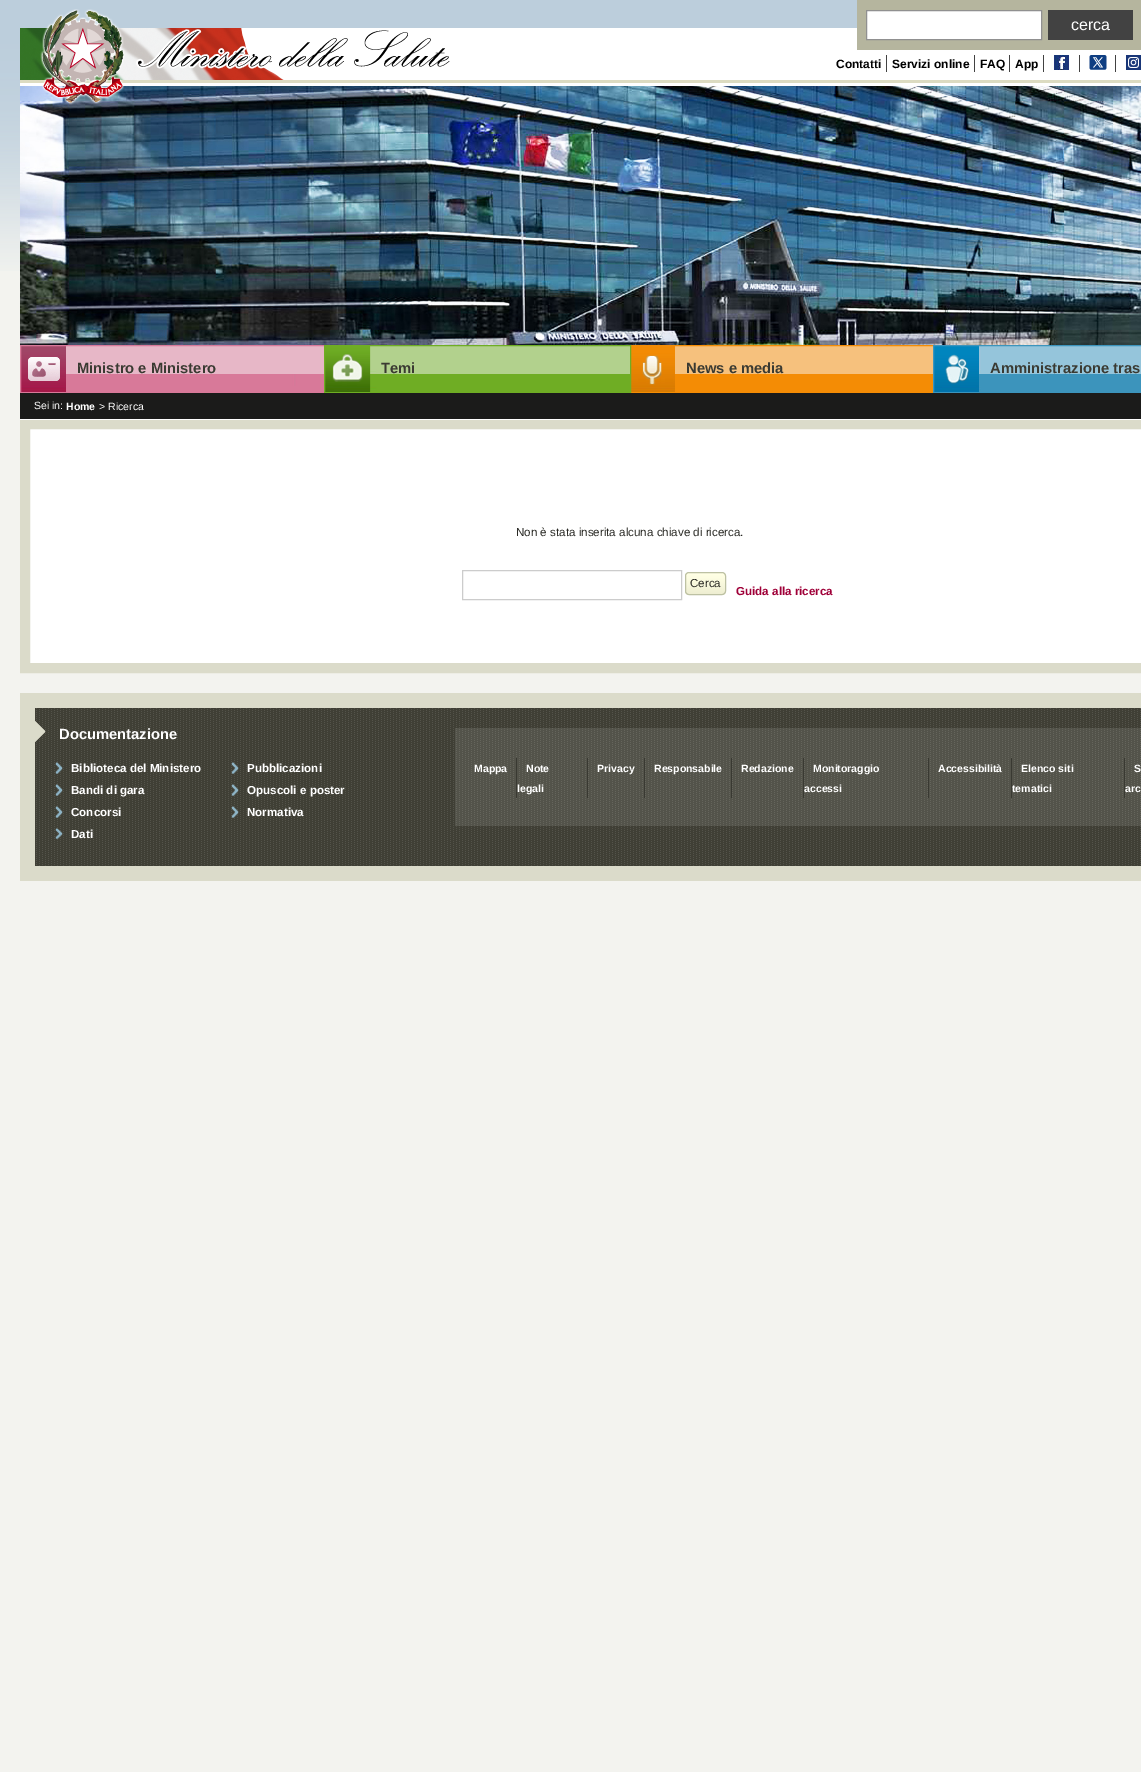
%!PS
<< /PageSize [1141 1772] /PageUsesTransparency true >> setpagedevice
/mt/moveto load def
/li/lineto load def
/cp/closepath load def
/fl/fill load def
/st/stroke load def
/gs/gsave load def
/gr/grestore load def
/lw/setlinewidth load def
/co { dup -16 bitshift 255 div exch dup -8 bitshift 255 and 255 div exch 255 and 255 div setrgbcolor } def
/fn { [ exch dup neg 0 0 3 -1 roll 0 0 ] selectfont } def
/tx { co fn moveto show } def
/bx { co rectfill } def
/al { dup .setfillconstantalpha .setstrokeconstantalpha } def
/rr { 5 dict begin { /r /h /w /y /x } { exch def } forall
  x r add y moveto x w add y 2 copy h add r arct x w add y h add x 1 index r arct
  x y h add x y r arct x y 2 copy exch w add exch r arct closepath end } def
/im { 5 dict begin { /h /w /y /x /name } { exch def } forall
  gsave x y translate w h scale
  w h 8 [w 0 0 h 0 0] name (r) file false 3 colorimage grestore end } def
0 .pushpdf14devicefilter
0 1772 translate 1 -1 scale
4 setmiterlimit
0 0 1141 1772 16#F3F3EF bx
(media/1.raw) 0 0 857 271 im
241 28 900 52 16#FFFFFF bx
857 0 284 50 16#B5B59E bx
16#FFFFFF co
866.5 10.5 mt 1041.5 10.5 li 1041.5 39.5 li 866.5 39.5 li cp gs fl gr
16#909090 co
st
1048 10 85 30 16#424242 bx
(media/2.raw) 20 28 264 52 im
20 80 1121 3 16#DCDBC1 bx
20 83 1121 3 16#FFFFFF bx
(media/7.raw) 20 86 1121 259 im
(media/3.raw) 40 9 410 96 im
886 55 1 17 16#424242 bx
974 55 1 17 16#424242 bx
1009 55 1 17 16#424242 bx
1043 55 1 17 16#424242 bx
(media/4.raw) 1051 55 19 15 im
1079 55 1 17 16#424242 bx
(media/5.raw) 1089 55 18 15 im
1115 55 1 17 16#424242 bx
(media/6.raw) 1126 55 15 15 im
(media/8.raw) 21 346 303 46 im
(media/9.raw) 28 357 32 24 im
16#D87999 co
20.5 345.5 305 47 rectstroke
(media/12.raw) 631 346 302 46 im
(media/13.raw) 642 355 20 30 im
16#F48C05 co
629.5 345.5 305 47 rectstroke
(media/10.raw) 325 346 305 46 im
(media/11.raw) 332 354 31 28 im
16#6FAD24 co
324.5 345.5 306 47 rectstroke
(media/14.raw) 934 346 207 46 im
(media/15.raw) 945 354 24 30 im
16#3C94BC co
933.5 345.5 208 47 rectstroke
20 393 1121 26 16#1B1B1A bx
16#FFFFFF co
25 424 mt 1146 424 li 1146 668 li 25 668 li cp gs fl gr
16#DBDBCA co
10 lw
st
20 419 1121 1 16#FFFFFF bx
16#CCCCCC co
1 lw
462.5 570.5 219 29 rectstroke
(media/16.raw) 685 573 41 22 im
16#BDC1A3 co
685.5 572.5 40 22 3.5 rr st
20 693 1121 188 16#DBDBCA bx
(media/17.raw) 35 708 1106 158 im
(media/18.raw) 35 721 11 21 im
(media/19.raw) 55 762 8 12 im
(media/20.raw) 231 762 8 12 im
(media/19.raw) 55 784 8 12 im
(media/20.raw) 231 784 8 12 im
(media/19.raw) 55 806 8 12 im
(media/20.raw) 231 806 8 12 im
(media/21.raw) 55 828 8 11 im
0.1 al
455 728 686 98 16#FFFFFF bx
1 al
516 758 1 40 16#393932 bx
587 758 1 40 16#393932 bx
644 758 1 40 16#393932 bx
731 758 1 40 16#393932 bx
803 758 1 40 16#393932 bx
928 758 1 40 16#393932 bx
1011 758 1 40 16#393932 bx
1124 758 1 40 16#393932 bx
(cerca) 1071 30 /LiberationSans-Regular 16 16#FFFFFF tx
(Contatti) 836 68 /LiberationSans-Bold 12 16#000000 tx
(Servizi online) 892 68 /LiberationSans-Bold 12 16#000000 tx
(FAQ) 980 68 /LiberationSans-Bold 12 16#000000 tx
(App) 1015 68 /LiberationSans-Bold 12 16#000000 tx
(Ministro e Ministero) 77 373 /LiberationSans-Bold 14.75 16#3A3A32 tx
(Temi) 381 373 /LiberationSans-Bold 14.75 16#3A3A32 tx
(News e media) 686 373 /LiberationSans-Bold 14.75 16#3A3A32 tx
(Amministrazione tras) 990 373 /LiberationSans-Bold 14.75 16#3A3A32 tx
(Sei in:) 34 409 /LiberationSans-Regular 10.5 16#FFFFFF tx
(Home) 66 410 /LiberationSans-Bold 10.5 16#FFFFFF tx
(> Ricerca) 99 410 /LiberationSans-Regular 10.5 16#FFFFFF tx
(Non è stata inserita alcuna chiave di ricerca.) 516 536 /LiberationSans-Regular 11.6 16#2A2A25 tx
(Cerca) 690 587 /LiberationSans-Regular 11.6 16#2A2A25 tx
(Guida alla ricerca) 736 595 /LiberationSans-Bold 11.6 16#9F0038 tx
(Documentazione) 59 739 /LiberationSans-Bold 14.75 16#FFFFFF tx
(Biblioteca del Ministero) 71 772 /LiberationSans-Bold 11.6 16#FFFFFF tx
(Pubblicazioni) 247 772 /LiberationSans-Bold 11.6 16#FFFFFF tx
(Bandi di gara) 71 794 /LiberationSans-Bold 11.6 16#FFFFFF tx
(Opuscoli e poster) 247 794 /LiberationSans-Bold 11.6 16#FFFFFF tx
(Concorsi) 71 816 /LiberationSans-Bold 11.6 16#FFFFFF tx
(Normativa) 247 816 /LiberationSans-Bold 11.6 16#FFFFFF tx
(Dati) 71 838 /LiberationSans-Bold 11.6 16#FFFFFF tx
(Mappa) 474 772 /LiberationSans-Bold 10.5 16#FFFFFF tx
(Note) 526 772 /LiberationSans-Bold 10.5 16#FFFFFF tx
(legali) 517 792 /LiberationSans-Bold 10.5 16#FFFFFF tx
(Privacy) 597 772 /LiberationSans-Bold 10.5 16#FFFFFF tx
(Responsabile) 654 772 /LiberationSans-Bold 10.5 16#FFFFFF tx
(Redazione) 741 772 /LiberationSans-Bold 10.5 16#FFFFFF tx
(Monitoraggio) 813 772 /LiberationSans-Bold 10.5 16#FFFFFF tx
(accessi) 804 792 /LiberationSans-Bold 10.5 16#FFFFFF tx
(Accessibilità) 938 772 /LiberationSans-Bold 10.5 16#FFFFFF tx
(Elenco siti) 1021 772 /LiberationSans-Bold 10.5 16#FFFFFF tx
(tematici) 1012 792 /LiberationSans-Bold 10.5 16#FFFFFF tx
(S) 1134 772 /LiberationSans-Bold 10.5 16#FFFFFF tx
(arc) 1125 792 /LiberationSans-Bold 10.5 16#FFFFFF tx
.poppdf14devicefilter showpage
